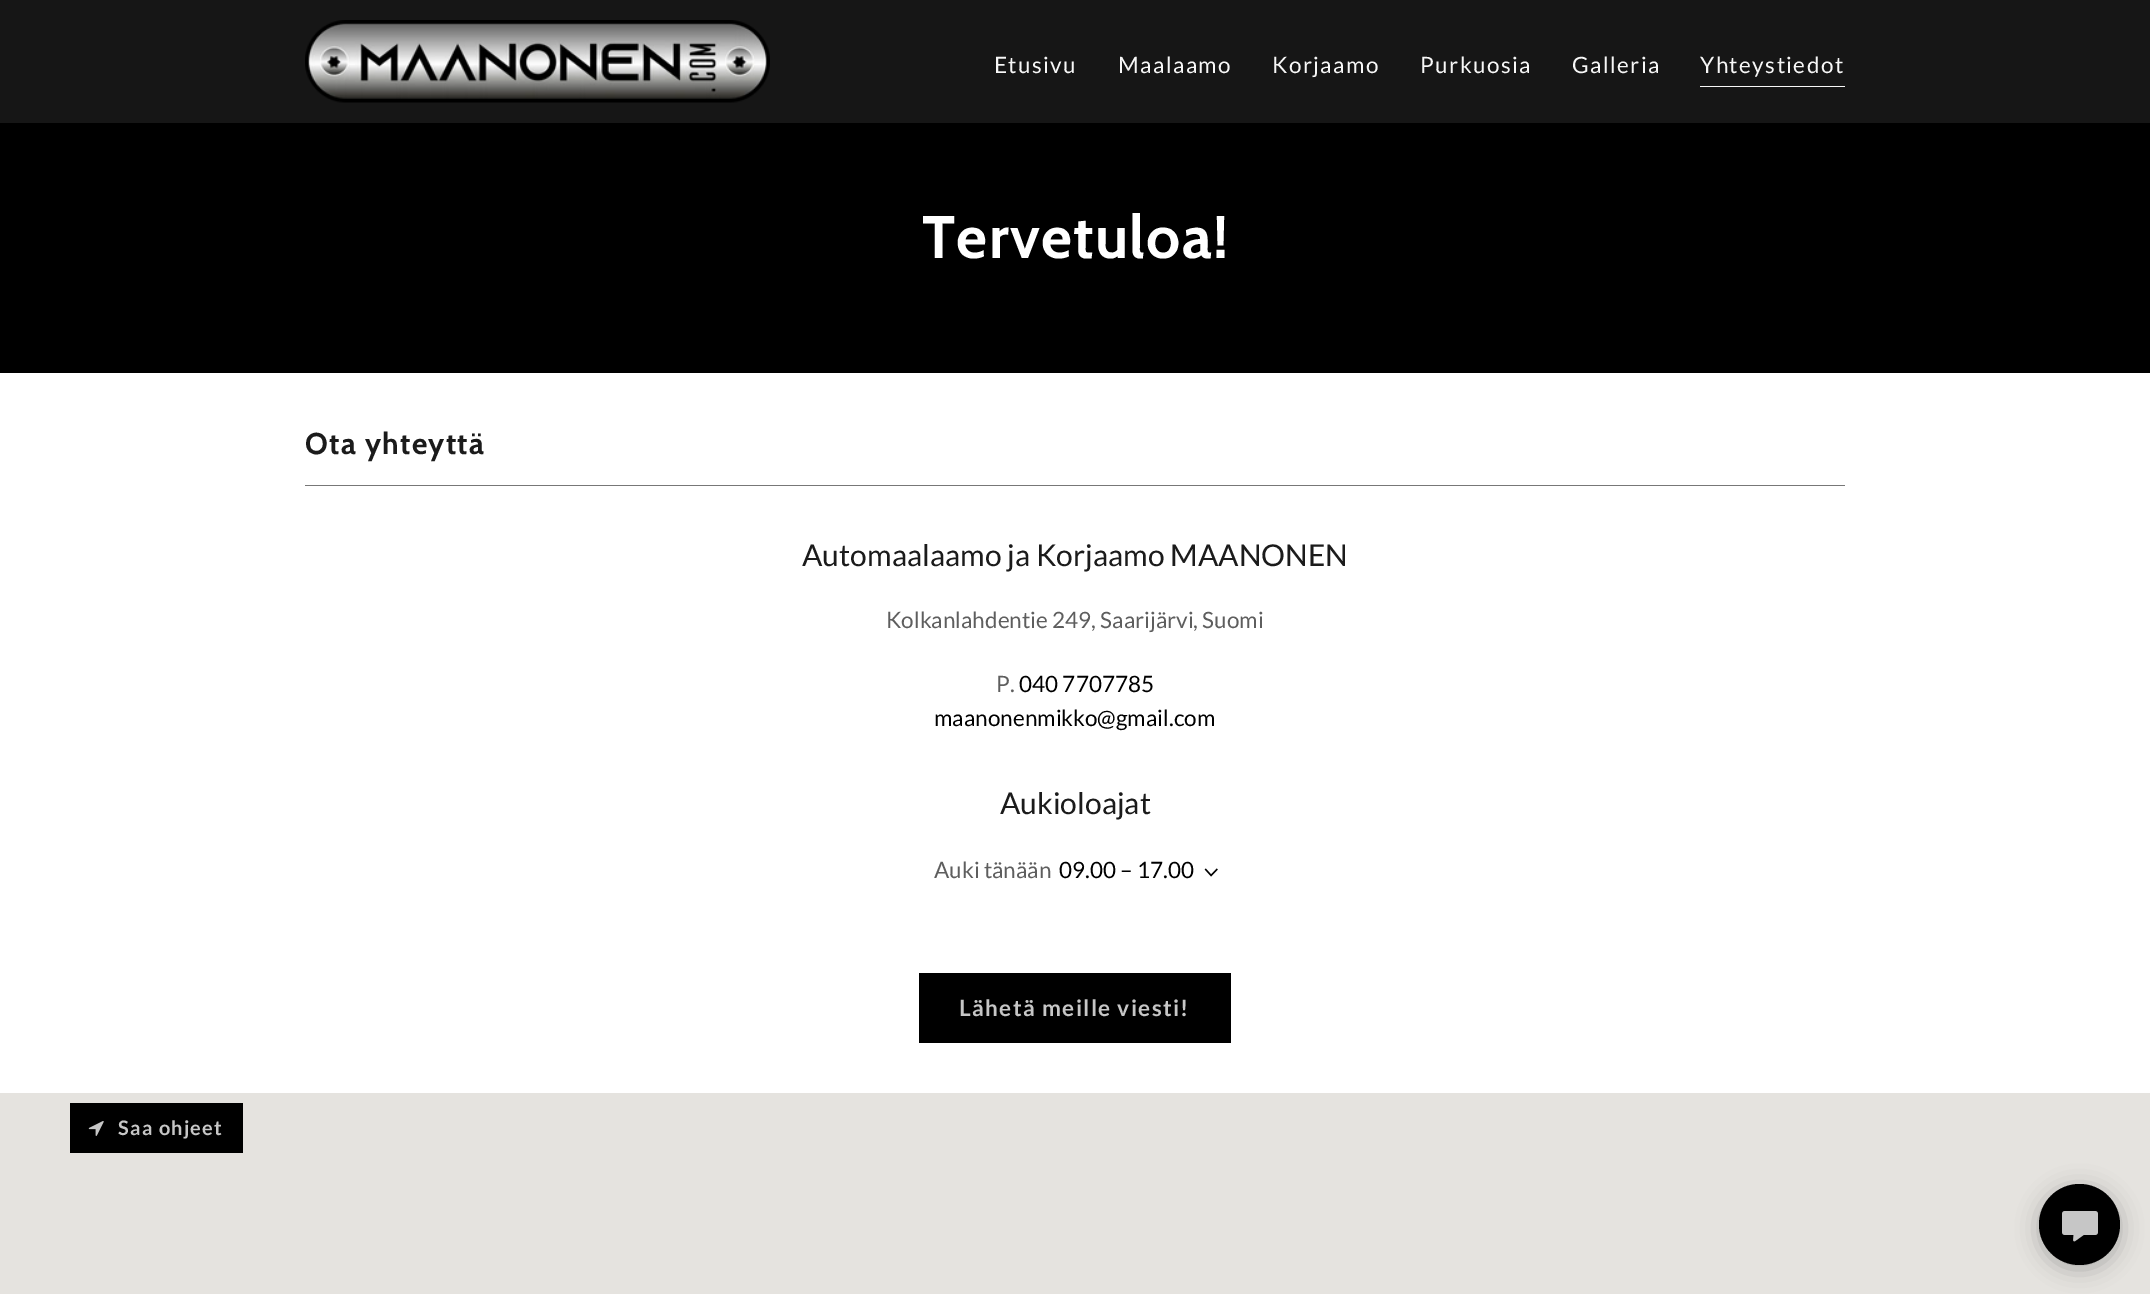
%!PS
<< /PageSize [2150 1294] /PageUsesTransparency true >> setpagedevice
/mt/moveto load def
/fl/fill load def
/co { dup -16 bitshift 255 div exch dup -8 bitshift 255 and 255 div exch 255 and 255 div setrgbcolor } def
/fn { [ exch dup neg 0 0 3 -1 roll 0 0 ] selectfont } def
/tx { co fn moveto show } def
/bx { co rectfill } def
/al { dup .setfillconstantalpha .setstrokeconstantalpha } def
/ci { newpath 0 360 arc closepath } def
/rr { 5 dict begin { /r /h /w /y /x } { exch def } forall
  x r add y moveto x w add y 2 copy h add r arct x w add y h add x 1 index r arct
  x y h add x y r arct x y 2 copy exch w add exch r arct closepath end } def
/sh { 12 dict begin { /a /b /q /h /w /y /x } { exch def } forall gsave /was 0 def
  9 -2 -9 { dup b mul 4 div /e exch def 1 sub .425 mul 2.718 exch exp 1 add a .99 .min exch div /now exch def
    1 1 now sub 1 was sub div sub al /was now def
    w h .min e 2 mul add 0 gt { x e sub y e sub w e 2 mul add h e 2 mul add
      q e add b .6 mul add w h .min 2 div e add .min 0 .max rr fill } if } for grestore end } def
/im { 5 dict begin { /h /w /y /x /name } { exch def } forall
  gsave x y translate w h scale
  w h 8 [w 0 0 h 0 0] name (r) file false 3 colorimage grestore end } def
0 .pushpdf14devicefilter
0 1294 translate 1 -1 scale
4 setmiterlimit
0 0 2150 1294 16#161616 bx
(media/1.raw) 305 20 465 83 im
1700 86 145 1 16#F7F7F7 bx
0 123 2150 250 16#000000 bx
0 373 2150 720 16#FFFFFF bx
305 485 1540 1 16#777777 bx
(media/2.raw) 1204 868 14 9 im
919 973 312 70 16#000000 bx
0 1093 2150 201 16#E5E3DF bx
70 1103 173 50 16#000000 bx
(media/3.raw) 88 1121 16 15 im
2039 1188 81 81 40.5 11 .25 sh
2079.5 1224.5 40.5 ci fl
(media/4.raw) 2062 1211 36 31 im
/Lato-Regular 22.5 fn
16#F7F7F7 co
994 73 mt 1.4 0 (Etusivu) ashow
1118 73 mt 1.4 0 (Maalaamo) ashow
1272 73 mt 1.4 0 (Korjaamo) ashow
1420 73 mt 1.4 0 (Purkuosia) ashow
1572 73 mt 1.4 0 (Galleria) ashow
1700 73 mt 1.4 0 (Yhteystiedot) ashow
/Cabin-Bold 60 fn
16#FFFFFF co
922 258 mt 1.25 0 (Tervetuloa!) ashow
/Cabin-Bold 30 fn
16#1B1B1B co
305 454 mt 1.25 0 (Ota yhteyttä) ashow
(Automaalaamo ja Korjaamo MAANONEN) 802 566 /Lato-Regular 30 16#1B1B1B tx
(Kolkanlahdentie 249, Saarijärvi, Suomi) 886 628 /Lato-Regular 22.5 16#5E5E5E tx
(P.) 996 692 /Lato-Regular 22.5 16#5E5E5E tx
(040 7707785) 1019 692 /Lato-Regular 22.5 16#000000 tx
(maanonenmikko@gmail.com) 934 726 /Lato-Regular 22.5 16#000000 tx
(Aukioloajat) 1000 814 /Lato-Regular 30 16#1B1B1B tx
(Auki tänään) 934 878 /Lato-Regular 22.5 16#5E5E5E tx
(09.00 – 17.00) 1059 878 /Lato-Regular 22.5 16#000000 tx
/Lato-Bold 22.5 fn
16#C6C6C6 co
959 1016 mt 1.4 0 (Lähetä meille viesti!) ashow
/Lato-Bold 20 fn
118 1135 mt 1.25 0 (Saa ohjeet) ashow
.poppdf14devicefilter showpage
